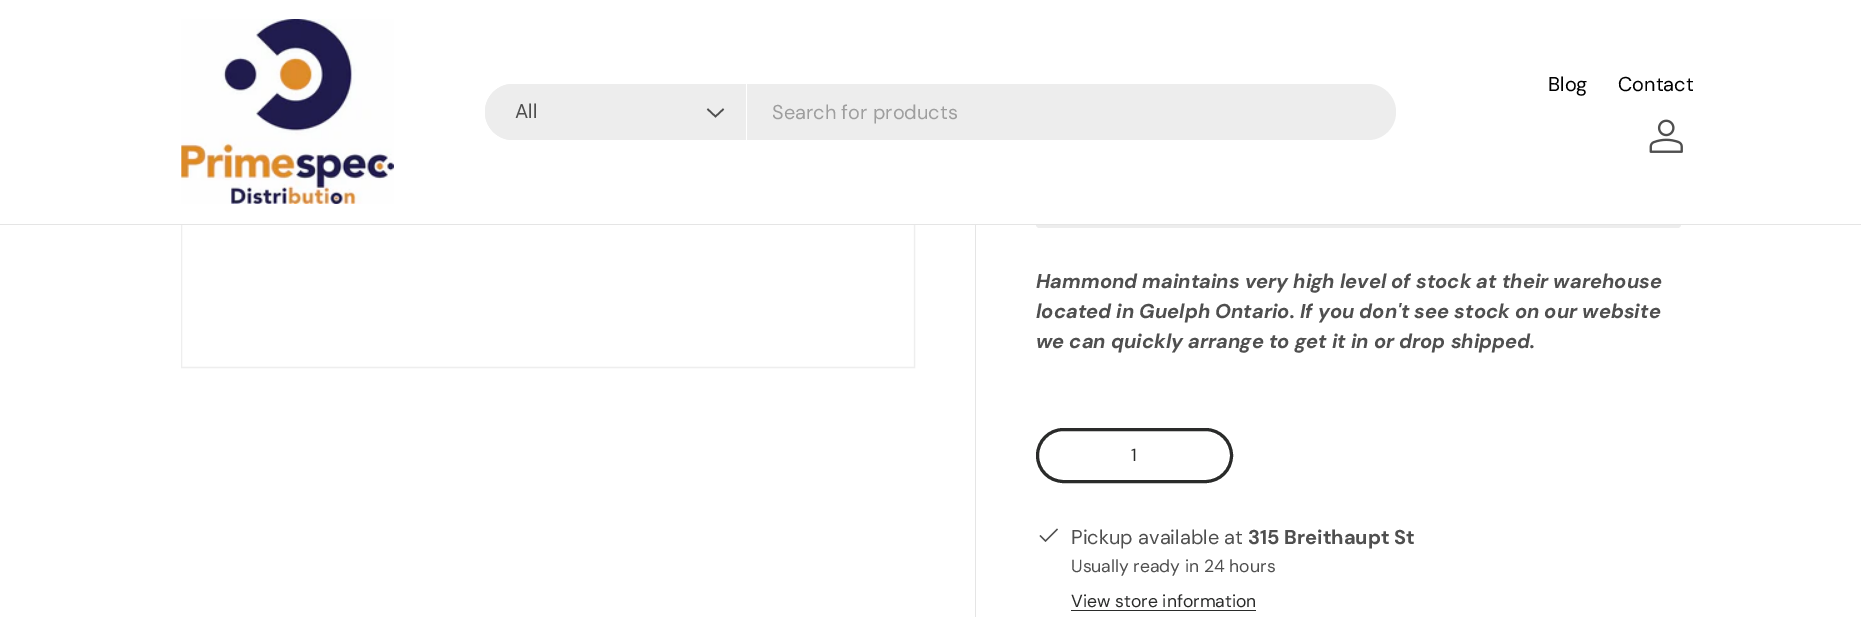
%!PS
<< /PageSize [1861 617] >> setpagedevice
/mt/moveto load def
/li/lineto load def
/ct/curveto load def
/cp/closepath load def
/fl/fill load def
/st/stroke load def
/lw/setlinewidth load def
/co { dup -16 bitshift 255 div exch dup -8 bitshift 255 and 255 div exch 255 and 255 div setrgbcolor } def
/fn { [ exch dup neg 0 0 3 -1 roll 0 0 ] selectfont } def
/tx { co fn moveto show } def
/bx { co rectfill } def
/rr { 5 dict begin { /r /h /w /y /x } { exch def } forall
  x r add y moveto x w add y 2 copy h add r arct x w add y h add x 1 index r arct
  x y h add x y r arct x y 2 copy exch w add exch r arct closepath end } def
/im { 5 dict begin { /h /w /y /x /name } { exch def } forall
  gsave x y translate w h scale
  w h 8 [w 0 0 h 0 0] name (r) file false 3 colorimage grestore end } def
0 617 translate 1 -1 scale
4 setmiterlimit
0 0 1861 617 16#FFFFFF bx
182 225 732 142 16#F4F4F4 bx
16#EEEEEE co
181.5 -.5 733 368 rectstroke
16#EDEDED co
1036 221 645 7 3.5 rr fl
181 0 1500 224 16#FFFFFF bx
0 224 1861 1 16#E5E5E5 bx
(media/1.raw) 181 19 213 185 im
(media/2.raw) 1649 119 34 34 im
16#EDEDED co
485 84 911 56 28 rr fl
513 84 mt 748 84 li 748 140 li 513 140 li 497.5 140 485 127.5 485 112 ct 485 96.5 497.5 84 513 84 ct cp fl
746 84 1 56 16#FFFFFF bx
16#4F4F4F co
1.6 lw
723.5 109 mt 715.5 116.5 li 707.5 109 li st
(media/3.raw) 182 225 732 142 im
975 225 1 392 16#E5E5E5 bx
16#2A2B2A co
3 lw
1037.5 429.5 194 52 26 rr st
16#4F4F4F co
1057 528.5 mt 1058 529.5 li 1045.5 542 li 1039.5 536 li 1040.5 535 li 1045.5 540 li cp fl
1071 610 185 1 16#2A2B2A bx
(Blog) 1548 91 /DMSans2-Regular 20 16#000000 tx
(Contact) 1618 91 /DMSans2-Regular 20 16#000000 tx
(All) 515 118 /DMSans2-Regular 20 16#4F4F4F tx
(Search for products) 772 119 /DMSans2-Regular 20 16#9E9E9E tx
(Hammond maintains very high level of stock at their warehouse) 1036 288 /DMSans-BoldItalic 20 16#4F4F4F tx
(located in Guelph Ontario. If you don't see stock on our website) 1036 318 /DMSans-BoldItalic 20 16#4F4F4F tx
(we can quickly arrange to get it in or drop shipped.) 1036 348 /DMSans-BoldItalic 20 16#4F4F4F tx
(1) 1131 461 /DMSans-Regular 17.6 16#2A2B2A tx
(Pickup available at) 1071 544 /DMSans2-Regular 20 16#4F4F4F tx
(315 Breithaupt St) 1248 544 /DMSans-Bold 20 16#4F4F4F tx
(Usually ready in 24 hours) 1071 572 /DMSans-Regular 17.6 16#4F4F4F tx
(View store information) 1071 607 /DMSans-Regular 17.6 16#2A2B2A tx
showpage
